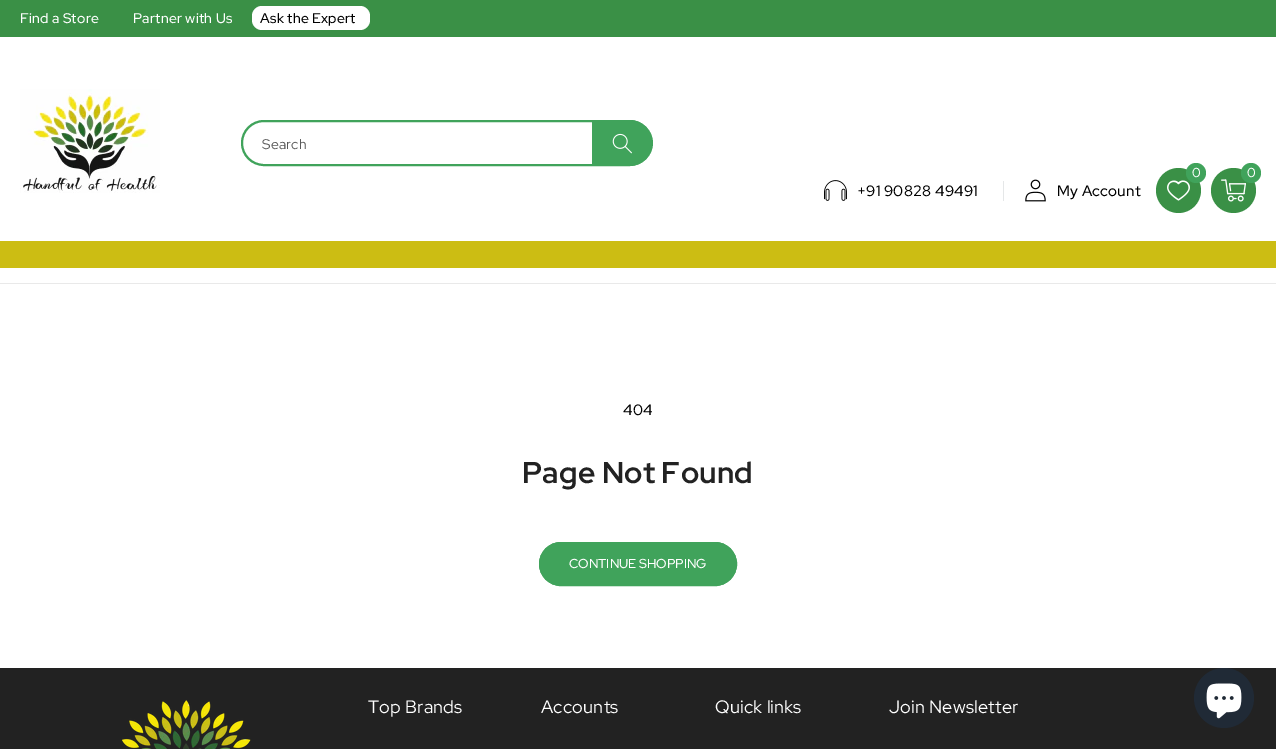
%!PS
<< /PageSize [1276 749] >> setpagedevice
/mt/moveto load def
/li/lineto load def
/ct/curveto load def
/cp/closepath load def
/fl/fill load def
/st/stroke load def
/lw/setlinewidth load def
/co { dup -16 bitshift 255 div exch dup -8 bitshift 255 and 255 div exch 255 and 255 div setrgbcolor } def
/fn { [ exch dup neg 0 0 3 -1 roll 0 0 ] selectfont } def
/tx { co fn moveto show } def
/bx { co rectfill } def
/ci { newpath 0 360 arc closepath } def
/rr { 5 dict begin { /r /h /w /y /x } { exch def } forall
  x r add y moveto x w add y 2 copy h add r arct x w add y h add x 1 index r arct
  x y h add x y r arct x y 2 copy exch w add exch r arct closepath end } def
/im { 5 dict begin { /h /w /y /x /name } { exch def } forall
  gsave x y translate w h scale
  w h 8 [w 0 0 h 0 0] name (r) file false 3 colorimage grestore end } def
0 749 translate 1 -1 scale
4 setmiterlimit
0 0 1276 749 16#FFFFFF bx
0 0 1276 37 16#3A9046 bx
16#FFFFFF co
252 6 118 24 10 rr fl
0 283 1276 1 16#E9E9E9 bx
(media/1.raw) 20 89 140 104 im
16#40A35B co
592 120 mt 630 120 li 642.5 120 653 130.5 653 143 ct 653 155.5 642.5 166 630 166 ct 592 166 li cp fl
(media/2.raw) 612 133 20 21 im
2 lw
242 121 409 44 22 rr st
16#3A9046 co
1178.5 190.5 22.5 ci fl
(media/3.raw) 1167 180 23 21 im
16#40A35B co
1196 173 10 ci fl
16#3A9046 co
1233.5 190.5 22.5 ci fl
(media/4.raw) 1221 179 25 23 im
16#40A35B co
1251 173 10 ci fl
(media/5.raw) 824 180 23 21 im
1003 181 1 20 16#E5E7E8 bx
(media/6.raw) 1025 179 21 23 im
0 241 1276 27 16#CCBD13 bx
16#40A35B co
539 542 198 44 22 rr fl
1 lw
539.5 542.5 197 43 21.5 rr st
0 668 1276 81 16#222222 bx
(media/7.raw) 122 700 129 49 im
16#202A36 co
1224 698 30 ci fl
(media/8.raw) 1206 683 36 36 im
/RedHatDisplay-Medium 14 fn
16#FFFFFF co
20 23 mt .25 0 (Find a Store) ashow
133 23 mt .25 0 (Partner with Us) ashow
16#000000 co
260 23 mt .25 0 (Ask the Expert) ashow
/RedHatDisplay-Regular 14 fn
16#595959 co
262 149 mt .25 0 (Search) ashow
/RedHatDisplay-Medium 13 fn
16#FFFFFF co
1192 177 mt .25 0 (0) ashow
1247 177 mt .25 0 (0) ashow
/RedHatDisplay-Medium 15 fn
16#000000 co
857 196 mt .25 0 (+91 90828 49491) ashow
1057 196 mt .25 0 (My Account) ashow
623 415 mt .25 0 (404) ashow
/RedHatDisplay-Bold 30 fn
16#222222 co
522 483 mt .25 0 (Page Not Found) ashow
(CONTINUE SHOPPING) 569 568 /RedHatDisplay-Medium 13 16#FFFFFF tx
/RedHatDisplay-Regular 18 fn
368 713 mt .25 0 (Top Brands) ashow
541 713 mt .25 0 (Accounts) ashow
715 713 mt .25 0 (Quick links) ashow
889 713 mt .25 0 (Join Newsletter) ashow
showpage
